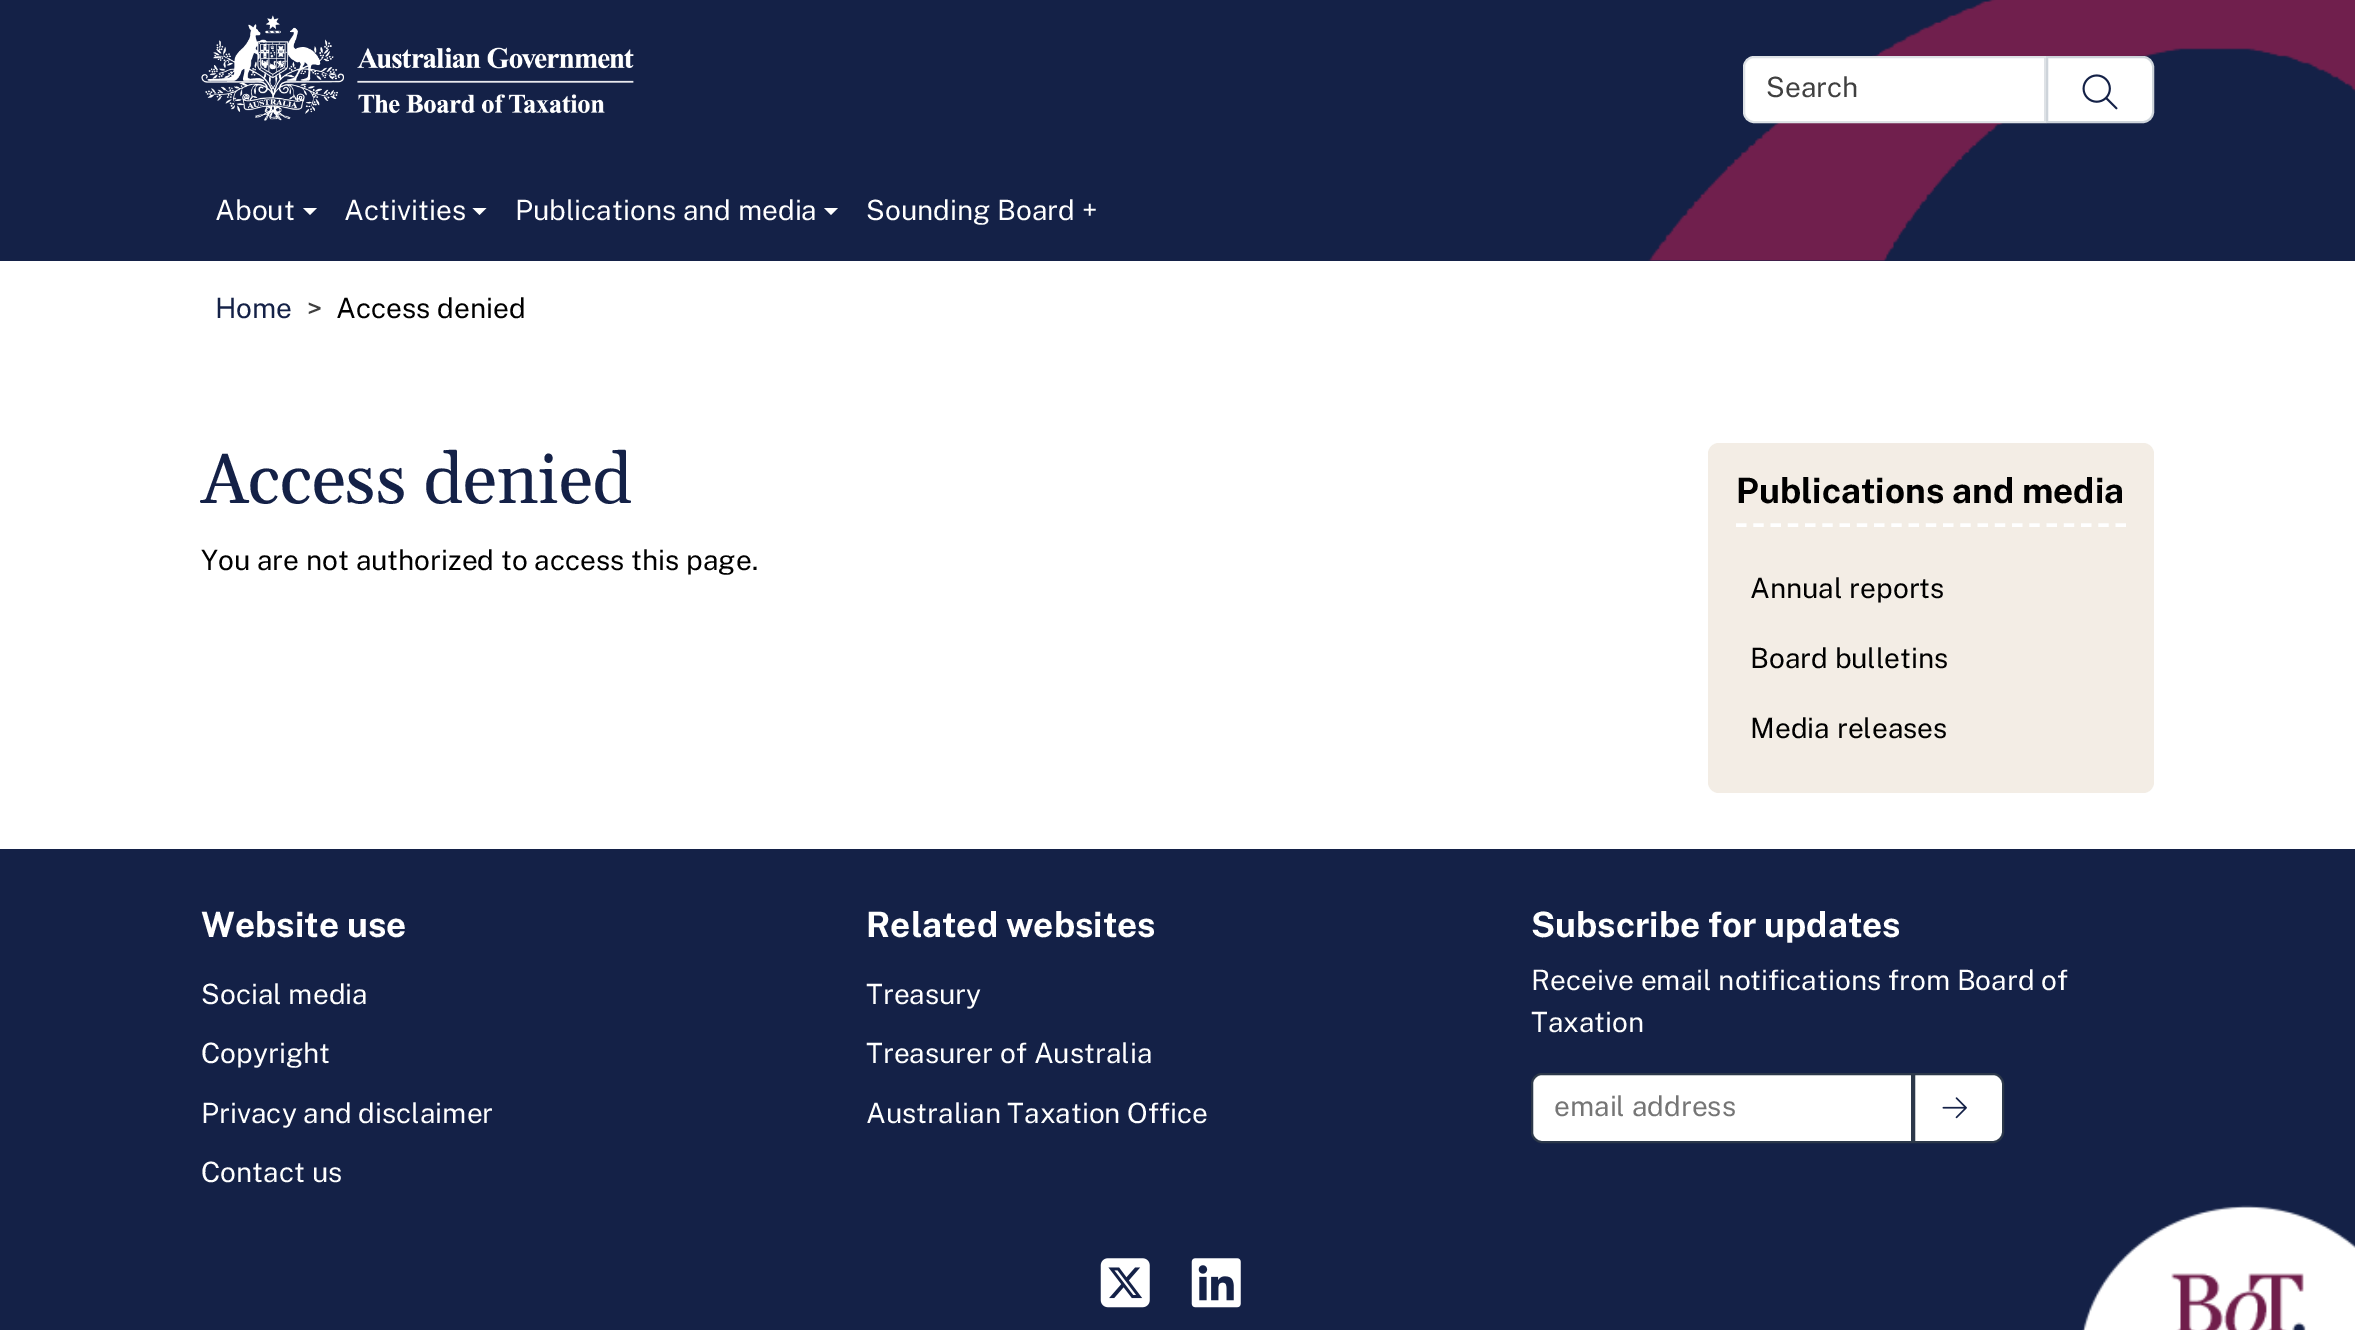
%!PS
<< /PageSize [2355 1330] >> setpagedevice
/mt/moveto load def
/li/lineto load def
/ct/curveto load def
/cp/closepath load def
/fl/fill load def
/st/stroke load def
/gs/gsave load def
/gr/grestore load def
/lw/setlinewidth load def
/co { dup -16 bitshift 255 div exch dup -8 bitshift 255 and 255 div exch 255 and 255 div setrgbcolor } def
/fn { [ exch dup neg 0 0 3 -1 roll 0 0 ] selectfont } def
/tx { co fn moveto show } def
/bx { co rectfill } def
/rr { 5 dict begin { /r /h /w /y /x } { exch def } forall
  x r add y moveto x w add y 2 copy h add r arct x w add y h add x 1 index r arct
  x y h add x y r arct x y 2 copy exch w add exch r arct closepath end } def
/im { 5 dict begin { /h /w /y /x /name } { exch def } forall
  gsave x y translate w h scale
  w h 8 [w 0 0 h 0 0] name (r) file false 3 colorimage grestore end } def
0 1330 translate 1 -1 scale
4 setmiterlimit
0 0 2355 1330 16#FFFFFF bx
0 0 2355 261 16#142147 bx
(media/1.raw) 1648 0 707 261 im
(media/2.raw) 201 15 433 106 im
16#FFFFFF co
1754 57 mt 2045 57 li 2045 122 li 1754 122 li 1748.5 122 1744 117.5 1744 112 ct 1744 67 li 1744 61.5 1748.5 57 1754 57 ct cp gs fl gr
16#DEE2E6 co
2 lw
st
16#FFFFFF co
2047 57 mt 2143 57 li 2148.5 57 2153 61.5 2153 67 ct 2153 112 li 2153 117.5 2148.5 122 2143 122 ct 2047 122 li cp gs fl gr
16#CED4DA co
st
(media/3.raw) 2082 74 36 36 im
16#FFFFFF co
303 208 mt 317 208 li 310 215 li cp fl
472.5 208 mt 486.5 208 li 479.5 215 li cp fl
824 208 mt 838 208 li 831 215 li cp fl
16#F3EDE5 co
1708 443 446 350 11 rr fl
16#FFFFFF co
3.5 lw
[10.5 6.75] 0 setdash
1736 525 mt 2126 525 li st
0 849 2355 481 16#142147 bx
(media/4.raw) 2082 1205 273 125 im
16#FFFFFF co
1542 1074 mt 1912 1074 li 1912 1142 li 1542 1142 li 1536.5 1142 1532 1137.5 1532 1132 ct 1532 1084 li 1532 1078.5 1536.5 1074 1542 1074 ct cp gs fl gr
16#2C384A co
2 lw
[] 0 setdash
st
16#FFFFFF co
1914 1074 mt 1993 1074 li 1998.5 1074 2003 1078.5 2003 1084 ct 2003 1132 li 2003 1137.5 1998.5 1142 1993 1142 ct 1914 1142 li cp gs fl gr
16#2C384A co
st
(media/5.raw) 1942 1097 25 22 im
(media/6.raw) 1100 1258 50 50 im
(media/7.raw) 1191 1258 50 50 im
(Search) 1766 97 /PublicSans-Regular 28 16#404040 tx
(About) 215 220 /PublicSans-Regular 28 16#FFFFFF tx
(Activities) 344 220 /PublicSans-Regular 28 16#FFFFFF tx
(Publications and media) 515 220 /PublicSans-Regular 28 16#FFFFFF tx
(Sounding Board +) 866 220 /PublicSans-Regular 28 16#FFFFFF tx
(Home) 215 318 /PublicSans-Regular 28 16#142147 tx
(>) 307 318 /PublicSans-Regular 28 16#404040 tx
(Access denied) 336 318 /PublicSans-Regular 28 16#000000 tx
(Access denied) 201 503 /Gelasio-Regular 70 16#142147 tx
(You are not authorized to access this page.) 201 570 /PublicSans-Regular 28 16#000000 tx
(Publications and media) 1736 503 /PublicSans-Bold 35 16#000000 tx
(Annual reports) 1750 598 /PublicSans-Regular 28 16#000000 tx
(Board bulletins) 1750 668 /PublicSans-Regular 28 16#000000 tx
(Media releases) 1750 738 /PublicSans-Regular 28 16#000000 tx
(Website use) 201 937 /PublicSans-Bold 35 16#FFFFFF tx
(Social media) 201 1004 /PublicSans-Regular 28 16#FFFFFF tx
(Copyright) 201 1063 /PublicSans-Regular 28 16#FFFFFF tx
(Privacy and disclaimer) 201 1123 /PublicSans-Regular 28 16#FFFFFF tx
(Contact us) 201 1182 /PublicSans-Regular 28 16#FFFFFF tx
(Related websites) 866 937 /PublicSans-Bold 35 16#FFFFFF tx
(Treasury) 866 1004 /PublicSans-Regular 28 16#FFFFFF tx
(Treasurer of Australia) 866 1063 /PublicSans-Regular 28 16#FFFFFF tx
(Australian Taxation Office) 866 1123 /PublicSans-Regular 28 16#FFFFFF tx
(Subscribe for updates) 1531 937 /PublicSans-Bold 35 16#FFFFFF tx
(Receive email notifications from Board of) 1531 990 /PublicSans-Regular 28 16#FFFFFF tx
(Taxation) 1531 1032 /PublicSans-Regular 28 16#FFFFFF tx
(email address) 1554 1116 /PublicSans-Regular 28 16#757575 tx
showpage
